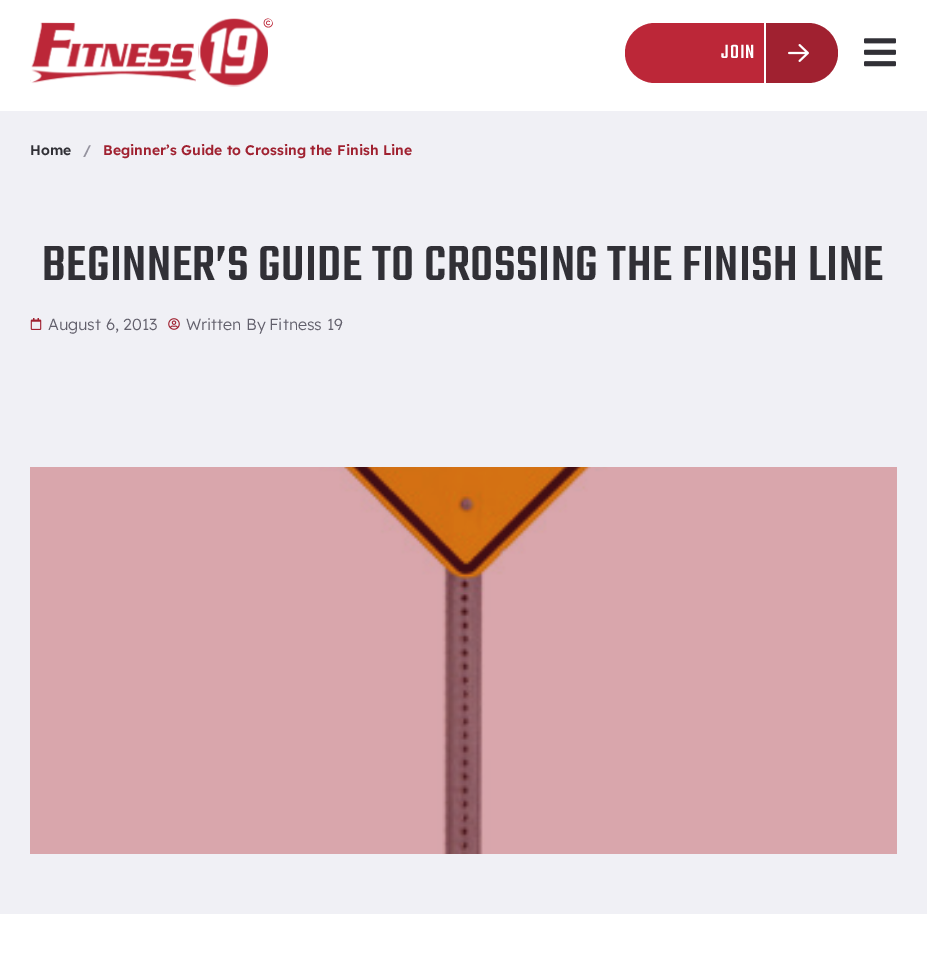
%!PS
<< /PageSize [927 964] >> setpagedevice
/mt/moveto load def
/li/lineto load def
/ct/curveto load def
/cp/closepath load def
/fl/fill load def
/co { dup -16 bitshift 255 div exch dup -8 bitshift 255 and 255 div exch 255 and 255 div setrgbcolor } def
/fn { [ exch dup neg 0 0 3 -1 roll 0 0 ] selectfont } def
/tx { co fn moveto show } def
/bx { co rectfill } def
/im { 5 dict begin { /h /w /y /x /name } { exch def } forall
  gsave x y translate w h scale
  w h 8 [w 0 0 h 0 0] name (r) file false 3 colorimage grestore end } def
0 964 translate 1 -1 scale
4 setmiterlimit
0 0 927 964 16#FFFFFF bx
(media/1.raw) 30 18 243 69 im
16#BC2738 co
655 23 mt 764 23 li 764 83 li 655 83 li 638.5 83 625 69.5 625 53 ct 625 36.5 638.5 23 655 23 ct cp fl
16#A02130 co
766 23 mt 808 23 li 824.5 23 838 36.5 838 53 ct 838 69.5 824.5 83 808 83 ct 766 83 li cp fl
(media/2.raw) 788 44 21 18 im
(media/3.raw) 864 38 32 29 im
0 111 927 803 16#F0F0F5 bx
(media/4.raw) 30 318 12 12 im
(media/5.raw) 168 318 12 12 im
(media/6.raw) 30 467 867 387 im
/Teko-Medium 21 fn
16#FFFFFF co
721 58 mt 1 0 (JOIN) ashow
(Home) 30 155 /Lexend-SemiBold 14 16#313036 tx
(/) 83 155 /Lexend-SemiBold 14 16#95939F tx
(Beginner’s Guide to Crossing the Finish Line) 103 155 /Lexend-SemiBold 14 16#A02130 tx
/Teko-Medium 54 fn
16#313036 co
42 280 mt .5 0 (BEGINNER’S GUIDE TO CROSSING THE FINISH LINE) ashow
(August 6, 2013) 48 330 /Lexend-Light 16 16#62606C tx
(Written By) 186 330 /Lexend-Light 16 16#62606C tx
(Fitness 19) 269 330 /Lexend-Light 16 16#62606C tx
showpage
